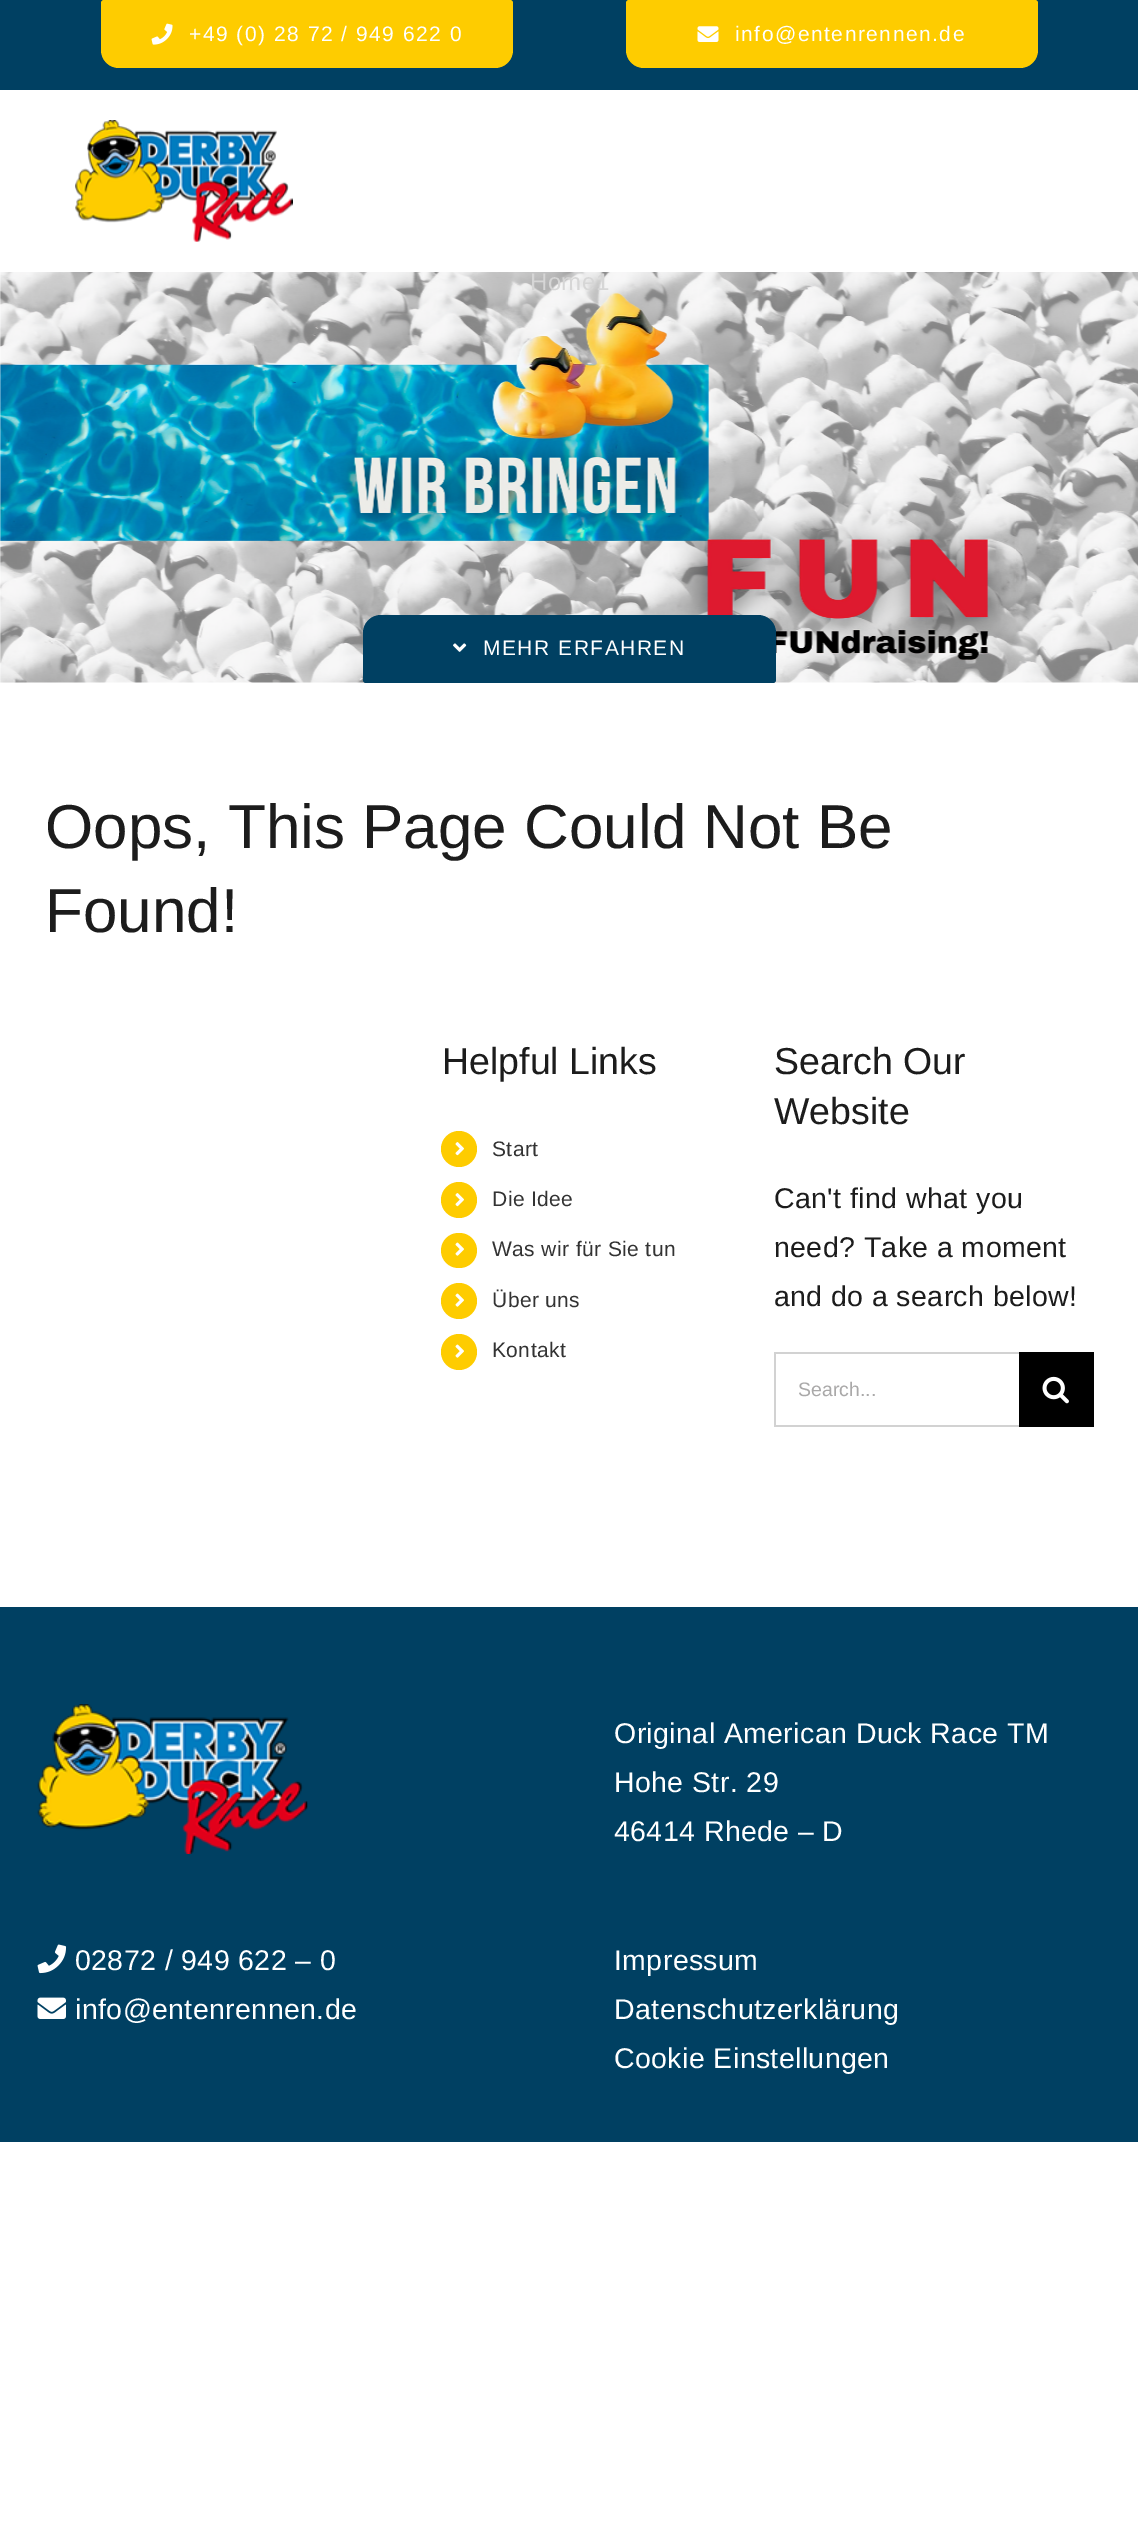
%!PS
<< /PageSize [1138 2547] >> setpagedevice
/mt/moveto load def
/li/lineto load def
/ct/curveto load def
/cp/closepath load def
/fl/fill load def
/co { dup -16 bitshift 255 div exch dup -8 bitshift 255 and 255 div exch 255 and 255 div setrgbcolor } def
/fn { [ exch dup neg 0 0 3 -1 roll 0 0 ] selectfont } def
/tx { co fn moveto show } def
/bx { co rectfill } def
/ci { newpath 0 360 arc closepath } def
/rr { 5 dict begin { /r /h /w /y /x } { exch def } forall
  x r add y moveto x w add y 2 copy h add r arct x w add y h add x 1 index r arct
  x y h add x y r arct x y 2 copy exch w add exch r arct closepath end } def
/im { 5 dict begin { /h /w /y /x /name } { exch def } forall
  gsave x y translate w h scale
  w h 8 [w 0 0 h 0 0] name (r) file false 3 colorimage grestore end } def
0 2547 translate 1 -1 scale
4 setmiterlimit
0 0 1138 2547 16#FFFFFF bx
0 0 1138 90 16#004062 bx
16#FECC00 co
104 0 mt 510 0 li 511.5 0 513 1.5 513 3 ct 513 50 li 513 60 505 68 495 68 ct 119 68 li 109 68 101 60 101 50 ct 101 3 li 101 1.5 102.5 0 104 0 ct cp fl
(media/1.raw) 151 23 22 22 im
629 0 mt 1035 0 li 1036.5 0 1038 1.5 1038 3 ct 1038 50 li 1038 60 1030 68 1020 68 ct 644 68 li 634 68 626 60 626 50 ct 626 3 li 626 1.5 627.5 0 629 0 ct cp fl
(media/2.raw) 697 26 22 16 im
(media/3.raw) 75 120 218 122 im
(media/4.raw) 0 272 1138 411 im
16#004062 co
381 615 mt 758 615 li 768 615 776 623 776 633 ct 776 680 li 776 681.5 774.5 683 773 683 ct 366 683 li 364.5 683 363 681.5 363 680 ct 363 633 li 363 623 371 615 381 615 ct cp fl
(media/5.raw) 453 643 14 9 im
16#FECC00 co
459 1149 18 ci fl
(media/6.raw) 455 1142 9 14 im
459 1200 18 ci fl
(media/6.raw) 455 1193 9 14 im
441 1233 36 35 17.5 rr fl
(media/7.raw) 455 1242 9 14 im
459 1301 18 ci fl
(media/7.raw) 455 1293 9 14 im
459 1352 18 ci fl
(media/7.raw) 455 1344 9 14 im
774 1352 245 2 16#D2D2D2 bx
774 1425 245 2 16#D2D2D2 bx
774 1352 2 75 16#D2D2D2 bx
1019 1352 75 75 16#000000 bx
(media/8.raw) 1042 1376 27 28 im
0 1607 1138 535 16#004062 bx
(media/9.raw) 37 1704 271 150 im
(media/10.raw) 37 1944 30 30 im
(media/11.raw) 37 1997 29 22 im
/LiberationSans-Regular 21 fn
16#FFFFFF co
189 41 mt 1.5 0 (+49 \(0\) 28 72 / 949 622 0) ashow
735 41 mt 1.5 0 (info@entenrennen.de) ashow
/LiberationSans-Regular 24 fn
16#D6D6D6 co
530 290 mt .4 0 (Home1) ashow
/LiberationSans-Regular 21 fn
16#FFFFFF co
483 655 mt 1.5 0 (MEHR ERFAHREN) ashow
(Oops, This Page Could Not Be) 45 848 /LiberationSans-Regular 62 16#1C1C1C tx
(Found!) 45 932 /LiberationSans-Regular 62 16#1C1C1C tx
(Helpful Links) 442 1074 /LiberationSans-Regular 37.5 16#1C1C1C tx
/LiberationSans-Regular 21 fn
16#333333 co
492 1156 mt .4 0 (Start) ashow
492 1206 mt .4 0 (Die Idee) ashow
492 1256 mt .4 0 (Was wir für Sie tun) ashow
492 1307 mt .4 0 (Über uns) ashow
492 1357 mt .4 0 (Kontakt) ashow
(Search Our) 774 1074 /LiberationSans-Regular 37.5 16#1C1C1C tx
(Website) 774 1124 /LiberationSans-Regular 37.5 16#1C1C1C tx
/LiberationSans-Regular 28.5 fn
774 1208 mt .4 0 (Can't find what you) ashow
774 1257 mt .4 0 (need? Take a moment) ashow
774 1306 mt .4 0 (and do a search below!) ashow
(Search...) 798 1396 /LiberationSans-Regular 19.5 16#AAA9A9 tx
/LiberationSans-Regular 28.5 fn
16#FFFFFF co
614 1743 mt .4 0 (Original American Duck Race TM) ashow
614 1792 mt .4 0 (Hohe Str. 29) ashow
614 1841 mt .4 0 (46414 Rhede – D) ashow
75 1970 mt .4 0 (02872 / 949 622 – 0) ashow
75 2019 mt .4 0 (info@entenrennen.de) ashow
614 1970 mt .4 0 (Impressum) ashow
614 2019 mt .4 0 (Datenschutzerklärung) ashow
614 2068 mt .4 0 (Cookie Einstellungen) ashow
showpage
